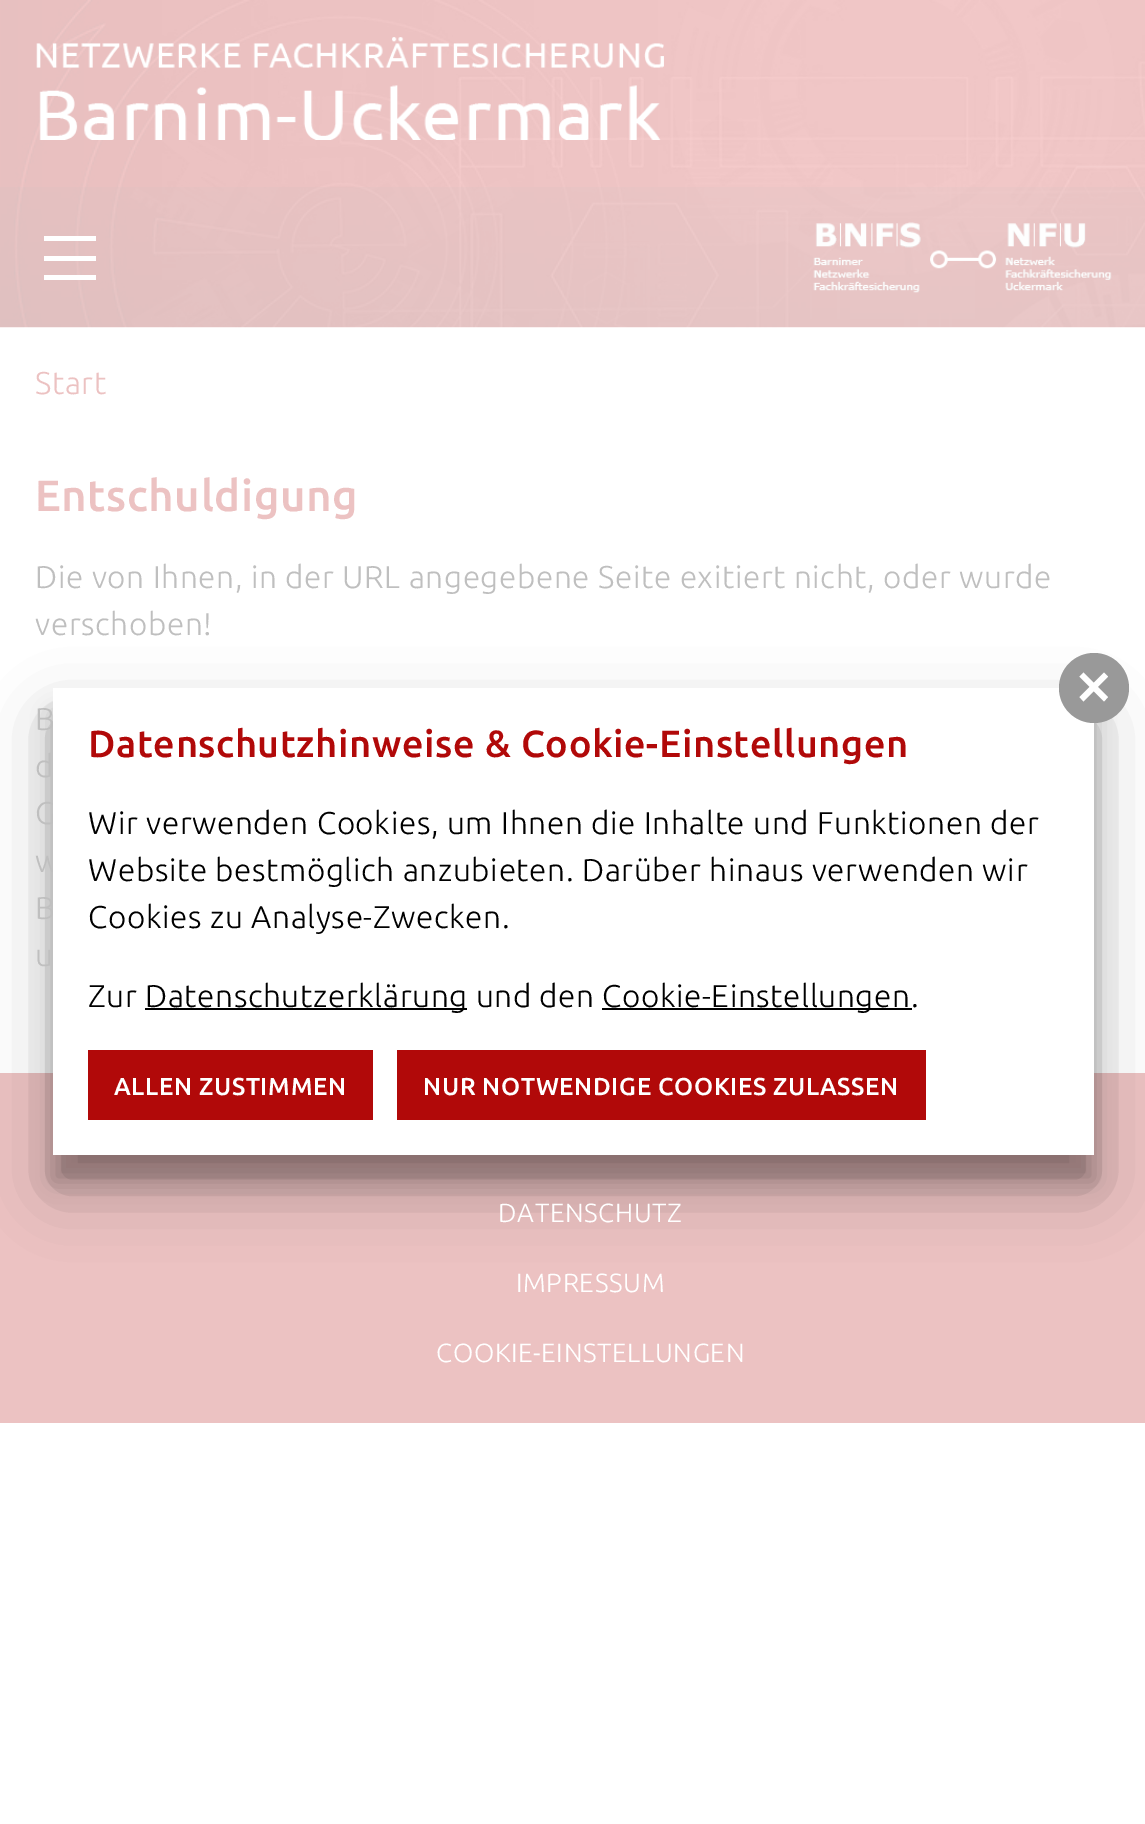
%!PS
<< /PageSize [1145 1824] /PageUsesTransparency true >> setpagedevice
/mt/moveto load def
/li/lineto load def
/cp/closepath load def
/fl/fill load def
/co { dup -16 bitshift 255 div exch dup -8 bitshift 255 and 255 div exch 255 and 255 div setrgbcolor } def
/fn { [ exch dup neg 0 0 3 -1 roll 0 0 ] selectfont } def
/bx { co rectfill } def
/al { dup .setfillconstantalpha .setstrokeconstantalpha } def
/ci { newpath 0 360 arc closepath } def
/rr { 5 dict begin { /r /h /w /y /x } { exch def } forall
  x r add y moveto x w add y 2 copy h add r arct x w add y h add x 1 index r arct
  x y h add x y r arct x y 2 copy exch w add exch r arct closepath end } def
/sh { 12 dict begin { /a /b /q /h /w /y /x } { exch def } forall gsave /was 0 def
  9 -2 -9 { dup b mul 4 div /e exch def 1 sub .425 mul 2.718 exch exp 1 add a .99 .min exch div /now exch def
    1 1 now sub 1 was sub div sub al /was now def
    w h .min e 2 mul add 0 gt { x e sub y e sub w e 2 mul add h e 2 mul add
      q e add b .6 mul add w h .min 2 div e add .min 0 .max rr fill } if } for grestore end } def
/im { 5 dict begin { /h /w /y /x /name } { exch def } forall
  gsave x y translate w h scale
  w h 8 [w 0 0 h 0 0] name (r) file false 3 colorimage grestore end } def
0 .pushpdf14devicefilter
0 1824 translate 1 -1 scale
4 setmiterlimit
0 0 1145 1824 16#FFFFFF bx
(media/1.raw) 0 0 1145 328 im
(media/2.raw) 36 37 628 103 im
(media/3.raw) 813 222 299 71 im
44 236 52 5 16#FFFFFF bx
44 256 52 5 16#FFFFFF bx
44 275 52 5 16#FFFFFF bx
0 1073 1145 350 16#ECC2C2 bx
16#000000 co
53 714 1041 467 0 10.5 .22 sh
53 721 1041 467 0 33 .3 sh
/Ubuntu-Light 31.5 fn
16#ECC2C2 co
35 394 mt .63 0 (Start) ashow
/Ubuntu-Medium 43.75 fn
35 511 mt .63 0 (Entschuldigung) ashow
/Ubuntu-Light 31.5 fn
16#BFBFBF co
35 588 mt .63 0 (Die von Ihnen, in der URL angegebene Seite exitiert nicht, oder wurde) ashow
35 635 mt .63 0 (verschoben!) ashow
35 730 mt .63 0 (B) ashow
35 777 mt .63 0 (d) ashow
35 824 mt .63 0 (G) ashow
35 872 mt .63 0 (w) ashow
35 919 mt .63 0 (B) ashow
35 966 mt .63 0 (u) ashow
53 688 1041 467 16#FFFFFF bx
16#999999 co
1094 688 35 ci fl
16#FFFFFF co
1083.5 672.5 mt 1108 697 li 1104 701.5 li 1079.5 676.5 li cp fl
1079.5 697 mt 1104 672.5 li 1108 676.5 li 1083.5 701.5 li cp fl
/Ubuntu-Medium 37.8 fn
16#B10909 co
88 757 mt .63 0 (Datenschutzhinweise & Cookie-Einstellungen) ashow
/Ubuntu-Light 31.5 fn
16#000000 co
88 834 mt .63 0 (Wir verwenden Cookies, um Ihnen die Inhalte und Funktionen der) ashow
88 881 mt .63 0 (Website bestmöglich anzubieten. Darüber hinaus verwenden wir) ashow
88 928 mt .63 0 (Cookies zu Analyse-Zwecken.) ashow
88 1007 mt .63 0 (Zur) ashow
145 1008 322 2 16#000000 bx
145 1007 mt .63 0 (Datenschutzerklärung und den) ashow
602 1008 310 2 16#000000 bx
602 1007 mt .63 0 (Cookie-Einstellungen.) ashow
88 1050 285 70 16#B10909 bx
/Ubuntu-Medium 24.5 fn
16#FFFFFF co
114 1095 mt .63 0 (ALLEN ZUSTIMMEN) ashow
397 1050 529 70 16#B10909 bx
16#FFFFFF co
423 1095 mt .63 0 (NUR NOTWENDIGE COOKIES ZULASSEN) ashow
/Ubuntu-Light 26.25 fn
498 1222 mt .63 0 (DATENSCHUTZ) ashow
516 1292 mt .63 0 (IMPRESSUM) ashow
436 1362 mt .63 0 (COOKIE-EINSTELLUNGEN) ashow
.poppdf14devicefilter showpage
